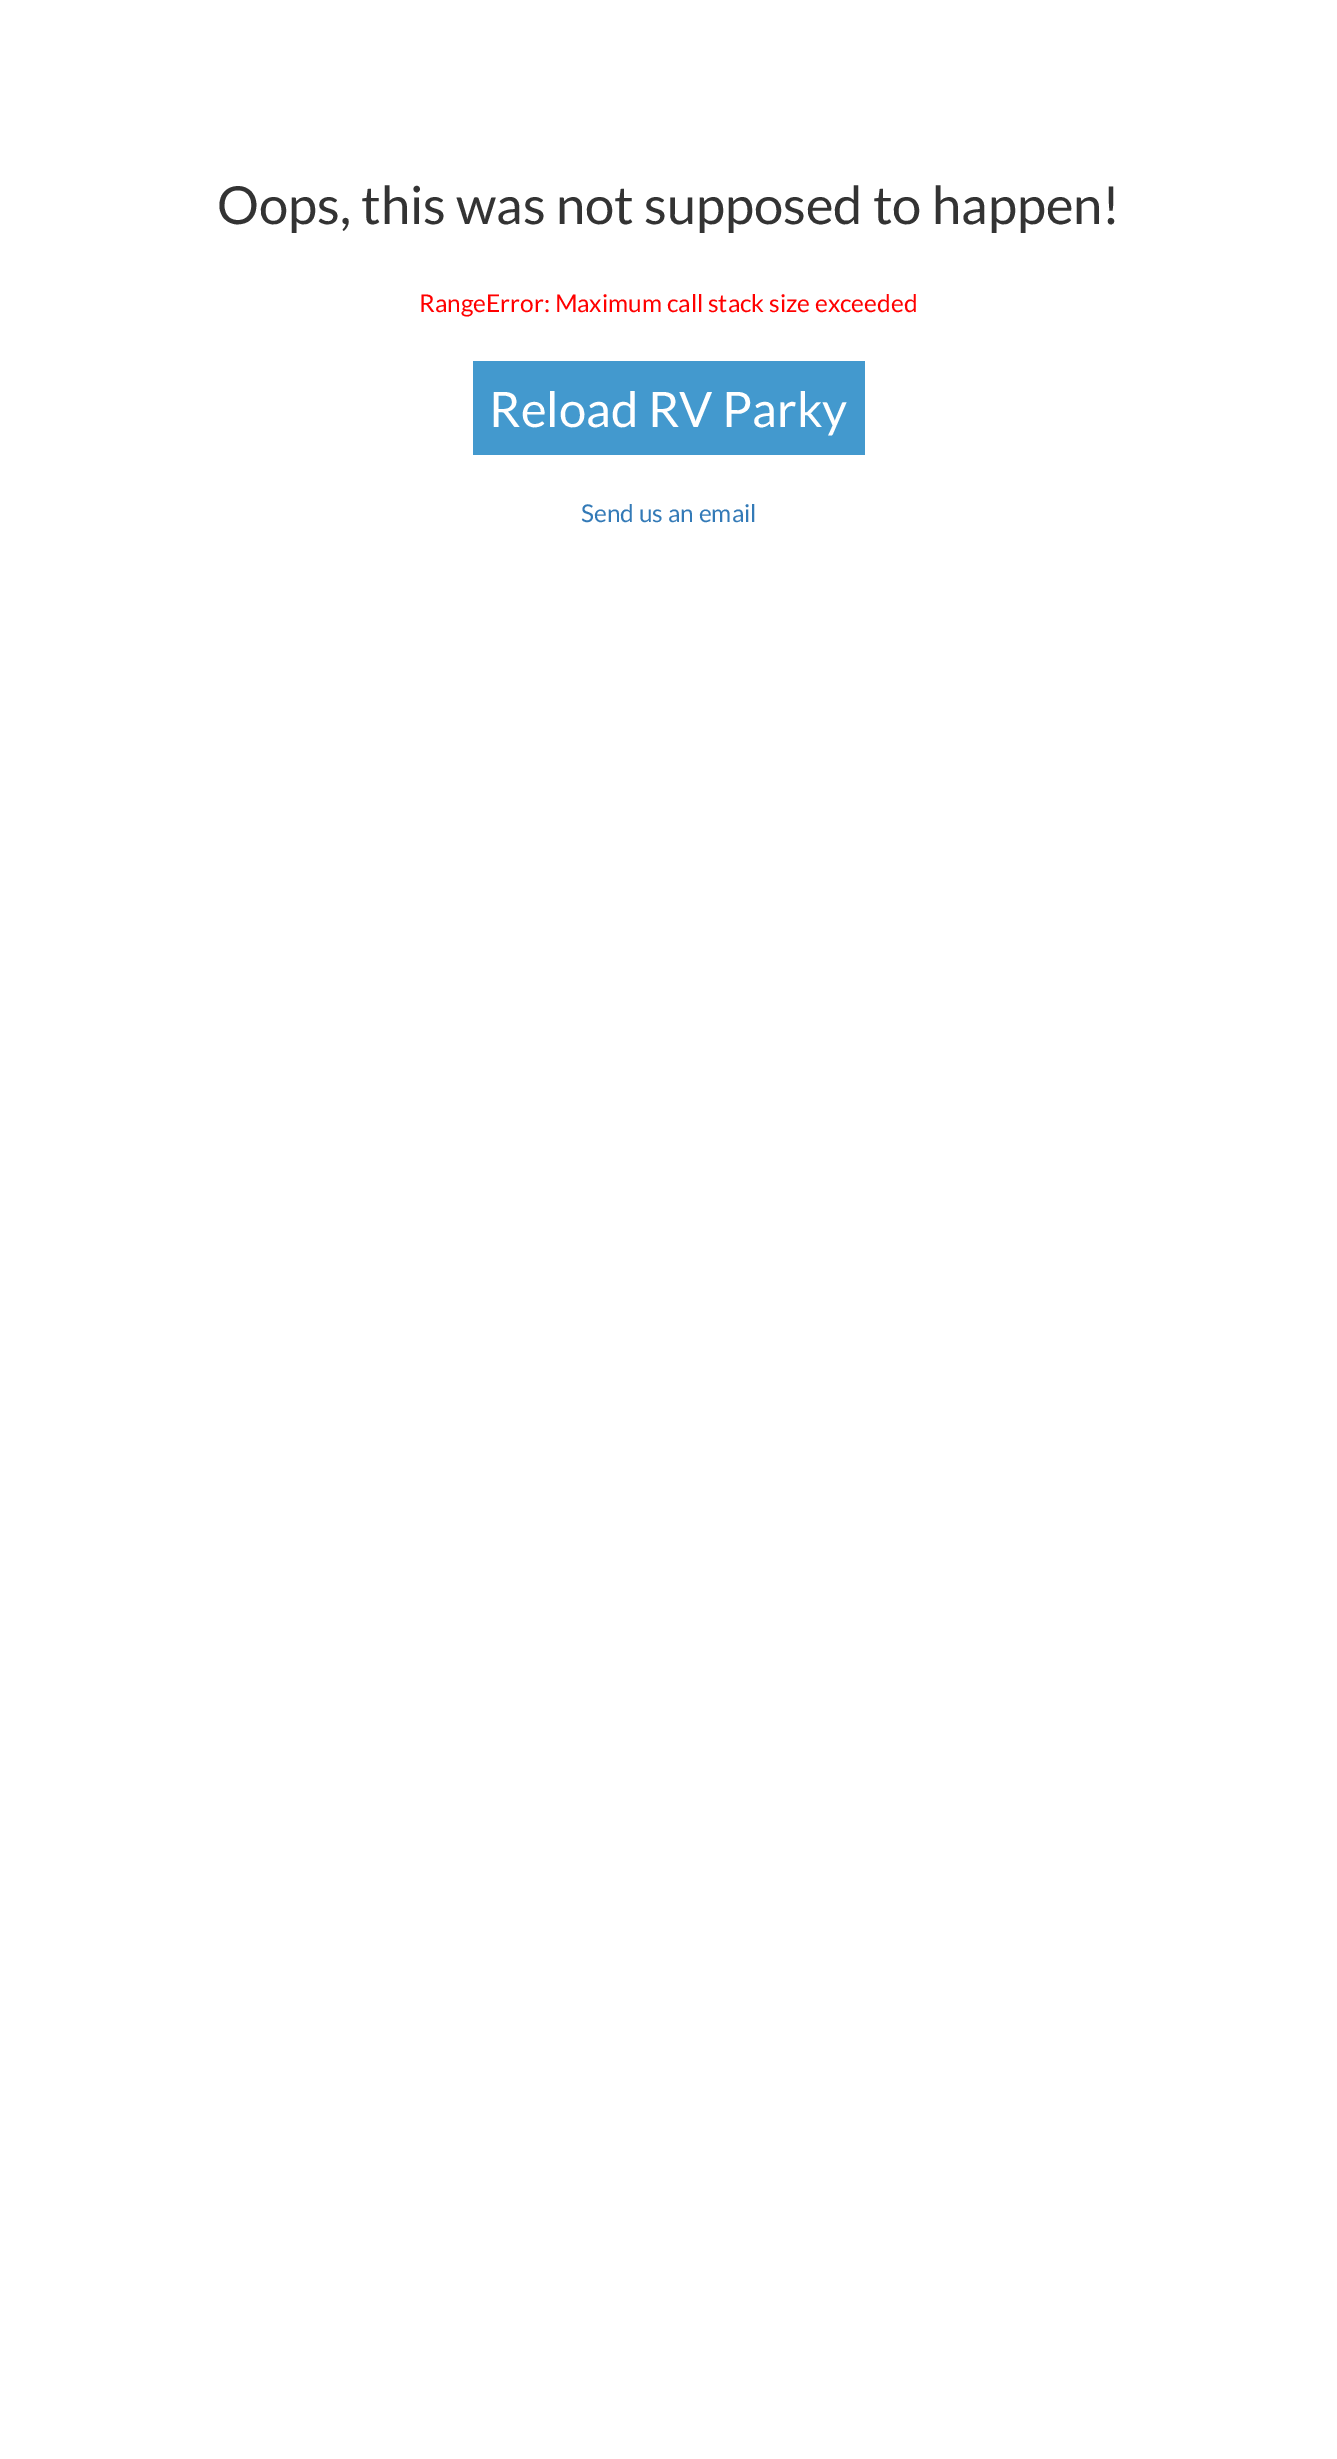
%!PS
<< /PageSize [1337 2459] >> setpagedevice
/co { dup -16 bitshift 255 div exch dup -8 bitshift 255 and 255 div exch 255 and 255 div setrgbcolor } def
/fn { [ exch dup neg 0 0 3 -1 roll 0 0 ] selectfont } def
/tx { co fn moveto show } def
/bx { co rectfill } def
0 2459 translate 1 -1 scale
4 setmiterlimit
0 0 1337 2459 16#FFFFFF bx
473 361 392 94 16#4399CE bx
(Oops, this was not supposed to happen!) 217 224 /Lato-Regular 52.5 16#333333 tx
(RangeError: Maximum call stack size exceeded) 419 312 /Lato-Regular 24.5 16#FF0000 tx
(Reload RV Parky) 489 427 /Lato-Regular 49 16#FFFFFF tx
(Send us an email) 581 522 /Lato-Regular 24.5 16#337AB7 tx
showpage
